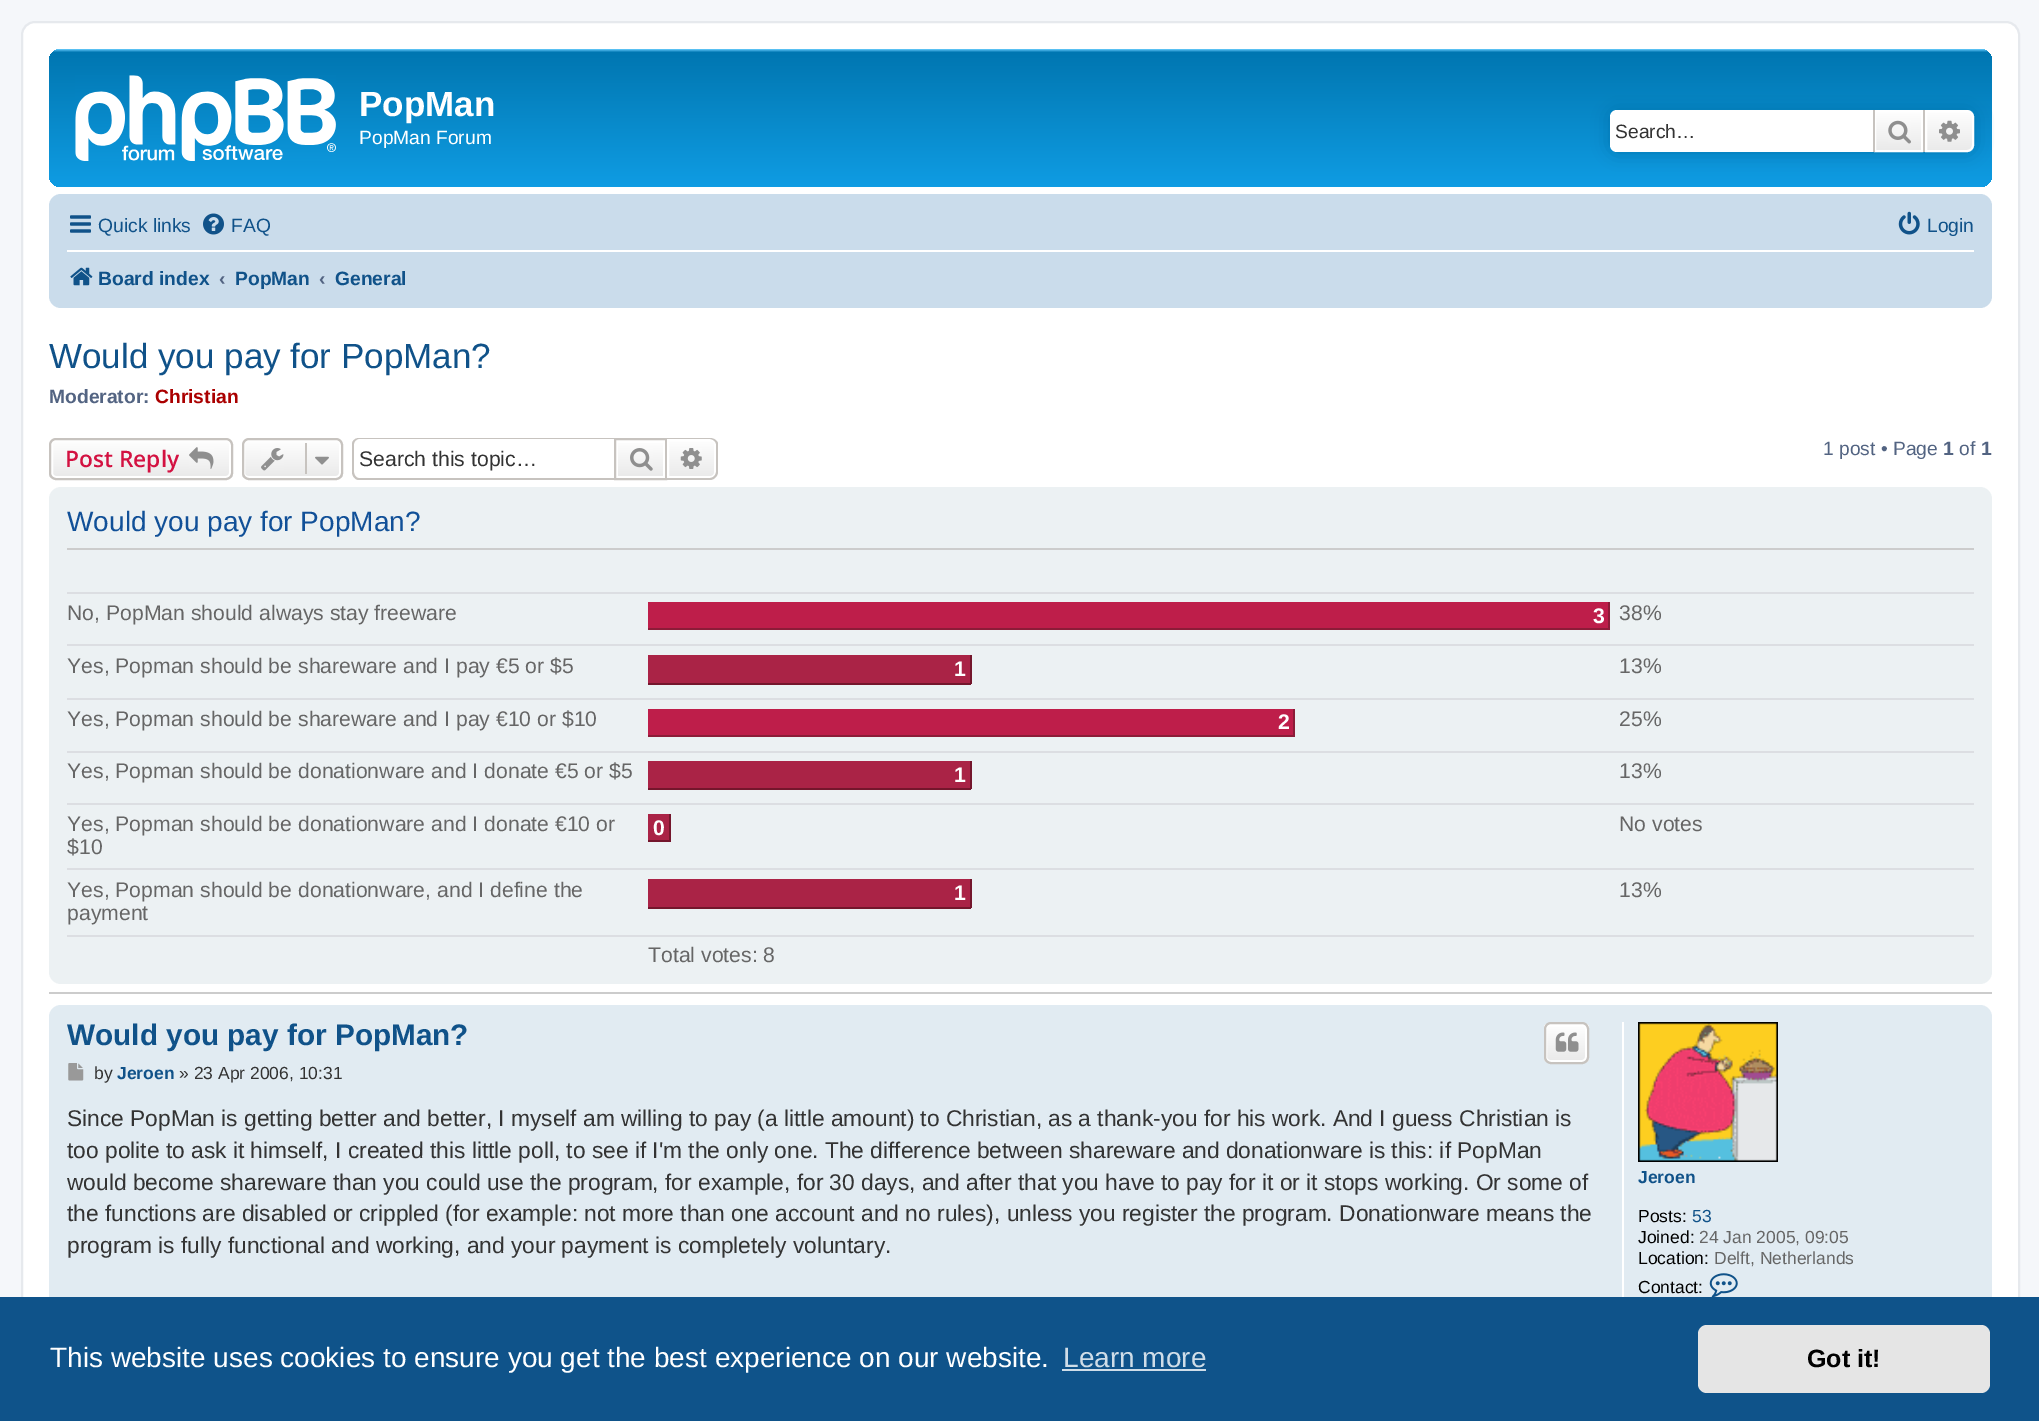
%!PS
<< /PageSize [2039 1421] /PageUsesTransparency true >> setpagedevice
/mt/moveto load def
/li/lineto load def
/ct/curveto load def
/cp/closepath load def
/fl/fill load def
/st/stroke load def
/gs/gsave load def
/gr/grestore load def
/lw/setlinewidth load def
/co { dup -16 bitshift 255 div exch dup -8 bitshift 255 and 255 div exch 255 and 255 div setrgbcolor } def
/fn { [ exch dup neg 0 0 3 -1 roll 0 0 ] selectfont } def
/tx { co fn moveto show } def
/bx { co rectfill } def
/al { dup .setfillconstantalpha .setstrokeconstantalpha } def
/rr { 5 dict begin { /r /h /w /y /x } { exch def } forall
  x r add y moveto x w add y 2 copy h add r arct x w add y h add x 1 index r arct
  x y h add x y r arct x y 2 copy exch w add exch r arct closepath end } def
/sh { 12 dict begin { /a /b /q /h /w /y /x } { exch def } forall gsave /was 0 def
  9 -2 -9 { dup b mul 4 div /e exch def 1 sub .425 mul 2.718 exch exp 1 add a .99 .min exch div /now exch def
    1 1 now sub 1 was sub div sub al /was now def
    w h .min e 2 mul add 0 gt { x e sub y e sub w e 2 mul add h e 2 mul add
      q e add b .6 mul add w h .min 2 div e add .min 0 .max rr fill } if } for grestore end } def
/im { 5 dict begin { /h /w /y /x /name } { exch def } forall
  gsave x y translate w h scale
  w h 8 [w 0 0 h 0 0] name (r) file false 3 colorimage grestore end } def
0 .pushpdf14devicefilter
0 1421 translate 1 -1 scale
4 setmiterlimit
0 0 2039 1421 16#F5F7FA bx
16#FFFFFF co
22 22 1997 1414 13 rr gs fl gr
16#E6E9ED co
2 lw
st
gs 49 49 1943 138 12 rr clip newpath
<< /ShadingType 2 /ColorSpace /DeviceRGB /Coords [1020 49 1020 210] /Extend [true true] /Function << /FunctionType 3 /Domain [0 1] /Functions [<< /FunctionType 2 /Domain [0 1] /C0 [.416 .808 1] /C1 [0 .463 .694] /N 1 >> << /FunctionType 2 /Domain [0 1] /C0 [0 .463 .694] /C1 [.071 .639 .922] /N 1 >>] /Bounds [.02] /Encode [0 1 0 1] >> >> shfill gr
(media/1.raw) 75 75 261 86 im
16#0075B0 co
1610 110 364 42 7 9 1 sh
16#FFFFFF co
1617 110 mt 1873 110 li 1873 152 li 1617 152 li 1613 152 1610 149 1610 145 ct 1610 117 li 1610 113 1613 110 1617 110 ct cp fl
gs 1876 112 mt 1921 112 li 1921 150 li 1876 150 li cp clip newpath
<< /ShadingType 2 /ColorSpace /DeviceRGB /Coords [1899 110 1899 152] /Extend [true true] /Function << /FunctionType 2 /Domain [0 1] /C0 [1 1 1] /C1 [.914 .914 .914] /N 1 >> >> shfill gr
1875 111 47 40 rectstroke
1923 110 2 42 16#C7C3BF bx
1873 110 2 42 16#C7C3BF bx
(media/2.raw) 1888 120 23 24 im
gs 1926 111 mt 1967 111 li 1970.5 111 1973 113.5 1973 117 ct 1973 145 li 1973 148.5 1970.5 151 1967 151 ct 1926 151 li cp clip newpath
<< /ShadingType 2 /ColorSpace /DeviceRGB /Coords [1950 110 1950 152] /Extend [true true] /Function << /FunctionType 2 /Domain [0 1] /C0 [1 1 1] /C1 [.914 .914 .914] /N 1 >> >> shfill gr
16#FFFFFF co
1926 111 mt 1967 111 li 1970.5 111 1973 113.5 1973 117 ct 1973 145 li 1973 148.5 1970.5 151 1967 151 ct 1926 151 li cp st
(media/3.raw) 1939 120 21 22 im
16#CADCEB co
49 194 1943 114 12 rr fl
(media/4.raw) 70 215 21 18 im
(media/5.raw) 203 213 21 22 im
(media/6.raw) 1898 211 22 24 im
67 250 1907 2 16#FFFFFF bx
(media/7.raw) 70 267 23 19 im
gs
49 438 184 42 7 rr clip newpath
gs 49 439 mt 233 439 li 233 478 li 49 478 li cp clip newpath
<< /ShadingType 2 /ColorSpace /DeviceRGB /Coords [141 439 141 478] /Extend [true true] /Function << /FunctionType 2 /Domain [0 1] /C0 [1 1 1] /C1 [.914 .914 .914] /N 1 >> >> shfill gr
gr
52 440 178 37 4 rr st
16#C7C3BF co
50 439 182 40 6 rr st
(media/8.raw) 189 447 25 22 im
gs
242 438 101 42 7 rr clip newpath
gs 242 439 mt 343 439 li 343 478 li 242 478 li cp clip newpath
<< /ShadingType 2 /ColorSpace /DeviceRGB /Coords [292 439 292 478] /Extend [true true] /Function << /FunctionType 2 /Domain [0 1] /C0 [1 1 1] /C1 [.914 .914 .914] /N 1 >> >> shfill gr
gr
16#FFFFFF co
244 440 96 37 4 rr st
16#C7C3BF co
243 439 99 40 6 rr st
(media/9.raw) 261 448 23 23 im
305 443 2 31 16#C7C3BF bx
(media/10.raw) 315 456 14 9 im
359 438 mt 614 438 li 614 480 li 359 480 li 355 480 352 476 352 472 ct 352 444 li 352 441 355 438 359 438 ct cp 359 439 mt 614 439 li 614 478 li 359 478 li 356 478 354 475 354 472 ct 354 444 li 354 442 356 439 359 439 ct cp eofill
gs 618 443 mt 663 443 li 663 476 li 618 476 li cp clip newpath
<< /ShadingType 2 /ColorSpace /DeviceRGB /Coords [641 439 641 478] /Extend [true true] /Function << /FunctionType 2 /Domain [0 1] /C0 [1 1 1] /C1 [.914 .914 .914] /N 1 >> >> shfill gr
615 439 51 40 rectstroke
(media/11.raw) 630 448 23 23 im
gs 668 440 mt 711 440 li 713 440 715 442 715 444 ct 715 473 li 715 475 713 477 711 477 ct 668 477 li cp clip newpath
<< /ShadingType 2 /ColorSpace /DeviceRGB /Coords [691 439 691 478] /Extend [true true] /Function << /FunctionType 2 /Domain [0 1] /C0 [1 1 1] /C1 [.914 .914 .914] /N 1 >> >> shfill gr
16#FFFFFF co
668 440 mt 711 440 li 713 440 715 442 715 444 ct 715 473 li 715 475 713 477 711 477 ct 668 477 li cp st
16#C7C3BF co
667 438 mt 710 438 li 714 438 718 441 718 444 ct 718 472 li 718 476 714 480 710 480 ct 667 480 li cp 667 439 mt 710 439 li 713 439 716 442 716 444 ct 716 472 li 716 475 713 478 710 478 ct 667 478 li cp eofill
(media/12.raw) 680 448 22 21 im
16#ECF1F3 co
49 487 1943 497 12 rr fl
67 548 1907 2 16#CCCCCC bx
67 592 1907 2 16#DCDEE2 bx
648 602 960 26 16#BE1E4A bx
1608 602 2 28 16#8C1C38 bx
648 628 962 2 16#8C1C38 bx
67 644 1907 2 16#DCDEE2 bx
648 655 322 28 16#AA2346 bx
970 655 2 29 16#74162C bx
648 683 323 2 16#74162C bx
67 698 1907 2 16#DCDEE2 bx
648 709 645 26 16#BE1E4A bx
1293 709 2 28 16#8C1C38 bx
648 735 647 2 16#8C1C38 bx
67 751 1907 2 16#DCDEE2 bx
648 761 322 27 16#AA2346 bx
970 761 2 28 16#74162C bx
648 788 323 2 16#74162C bx
67 803 1907 2 16#DCDEE2 bx
648 814 21 26 16#AA2346 bx
669 814 2 28 16#74162C bx
648 840 22 2 16#74162C bx
67 868 1907 2 16#DCDEE2 bx
648 879 322 28 16#AA2346 bx
970 879 2 29 16#74162C bx
648 907 323 2 16#74162C bx
67 935 1907 2 16#DCDEE2 bx
49 992 1943 2 16#CCCCCC bx
16#E1EBF2 co
49 1005 1943 358 12 rr fl
gs
1544 1022 45 42 7 rr clip newpath
gs 1544 1024 mt 1589 1024 li 1589 1062 li 1544 1062 li cp clip newpath
<< /ShadingType 2 /ColorSpace /DeviceRGB /Coords [1566 1024 1566 1062] /Extend [true true] /Function << /FunctionType 2 /Domain [0 1] /C0 [1 1 1] /C1 [.914 .914 .914] /N 1 >> >> shfill gr
gr
16#FFFFFF co
1546 1025 40 36 4 rr st
16#C7C3BF co
1545 1023 43 40 6 rr st
(media/13.raw) 1555 1032 24 20 im
(media/14.raw) 68 1063 16 18 im
1622 1022 2 277 16#FFFFFF bx
(media/15.raw) 1638 1022 140 140 im
(media/16.raw) 1709 1273 29 24 im
0 1297 2039 124 16#0F538A bx
1062 1369 144 2 16#CFDDE8 bx
16#E5E5E5 co
1698 1325 292 68 9 rr fl
(PopMan) 359 116 /LiberationSans-Bold 35 16#FFFFFF tx
(PopMan Forum) 359 144 /LiberationSans-Regular 19.25 16#FFFFFF tx
(Search…) 1615 138 /LiberationSans-Regular 19.25 16#333333 tx
(Quick links) 98 232 /LiberationSans-Regular 19.25 16#105289 tx
(FAQ) 231 232 /LiberationSans-Regular 19.25 16#105289 tx
(Login) 1927 232 /LiberationSans-Regular 19.25 16#105289 tx
(Board index) 98 285 /LiberationSans-Bold 19.25 16#105289 tx
(‹) 219 285 /LiberationSans-Bold 19.25 16#536482 tx
(PopMan) 235 285 /LiberationSans-Bold 19.25 16#105289 tx
(‹) 319 285 /LiberationSans-Bold 19.25 16#536482 tx
(General) 335 285 /LiberationSans-Bold 19.25 16#105289 tx
(Would you pay for PopMan?) 49 368 /LiberationSans-Regular 35 16#105289 tx
(Moderator:) 49 403 /LiberationSans-Bold 19.25 16#536482 tx
(Christian) 155 403 /LiberationSans-Bold 19.25 16#AA0000 tx
(Post Reply) 65 467 /OpenSans-SemiBold 22.75 16#D31141 tx
(Search this topic…) 359 466 /LiberationSans-Regular 21.2 16#333333 tx
(1 post • Page) 1823 455 /LiberationSans-Regular 19.25 16#536482 tx
(1) 1943 455 /LiberationSans-Bold 19.25 16#536482 tx
(of) 1959 455 /LiberationSans-Regular 19.25 16#536482 tx
(1) 1981 455 /LiberationSans-Bold 19.25 16#536482 tx
(Would you pay for PopMan?) 67 531 /LiberationSans-Regular 28 16#115098 tx
(No, PopMan should always stay freeware) 67 620 /LiberationSans-Regular 21.2 16#666666 tx
(3) 1593 623 /LiberationSans-Bold 21.2 16#FFFFFF tx
(38%) 1619 620 /LiberationSans-Regular 21.2 16#666666 tx
(Yes, Popman should be shareware and I pay €5 or $5) 67 673 /LiberationSans-Regular 21.2 16#666666 tx
(1) 954 676 /LiberationSans-Bold 21.2 16#FFFFFF tx
(13%) 1619 673 /LiberationSans-Regular 21.2 16#666666 tx
(Yes, Popman should be shareware and I pay €10 or $10) 67 726 /LiberationSans-Regular 21.2 16#666666 tx
(2) 1278 729 /LiberationSans-Bold 21.2 16#FFFFFF tx
(25%) 1619 726 /LiberationSans-Regular 21.2 16#666666 tx
(Yes, Popman should be donationware and I donate €5 or $5) 67 778 /LiberationSans-Regular 21.2 16#666666 tx
(1) 954 782 /LiberationSans-Bold 21.2 16#FFFFFF tx
(13%) 1619 778 /LiberationSans-Regular 21.2 16#666666 tx
(Yes, Popman should be donationware and I donate €10 or) 67 831 /LiberationSans-Regular 21.2 16#666666 tx
($10) 67 854 /LiberationSans-Regular 21.2 16#666666 tx
(0) 653 835 /LiberationSans-Bold 21.2 16#FFFFFF tx
(No votes) 1619 831 /LiberationSans-Regular 21.2 16#666666 tx
(Yes, Popman should be donationware, and I define the) 67 897 /LiberationSans-Regular 21.2 16#666666 tx
(payment) 67 920 /LiberationSans-Regular 21.2 16#666666 tx
(1) 954 900 /LiberationSans-Bold 21.2 16#FFFFFF tx
(13%) 1619 897 /LiberationSans-Regular 21.2 16#666666 tx
(Total votes: 8) 648 962 /LiberationSans-Regular 21.2 16#666666 tx
(Would you pay for PopMan?) 67 1045 /LiberationSans-Bold 29.75 16#105289 tx
(by) 94 1079 /LiberationSans-Regular 17.5 16#333333 tx
(Jeroen) 117 1079 /LiberationSans-Bold 17.5 16#105289 tx
(» 23 Apr 2006, 10:31) 179 1079 /LiberationSans-Regular 17.5 16#333333 tx
(Since PopMan is getting better and better, I myself am willing to pay \(a little amount\) to Christian, as a thank-you for his work. And I guess Christian is) 67 1126 /LiberationSans-Regular 22.75 16#333333 tx
(too polite to ask it himself, I created this little poll, to see if I'm the only one. The difference between shareware and donationware is this: if PopMan) 67 1158 /LiberationSans-Regular 22.75 16#333333 tx
(would become shareware than you could use the program, for example, for 30 days, and after that you have to pay for it or it stops working. Or some of) 67 1190 /LiberationSans-Regular 22.75 16#333333 tx
(the functions are disabled or crippled \(for example: not more than one account and no rules\), unless you register the program. Donationware means the) 67 1221 /LiberationSans-Regular 22.75 16#333333 tx
(program is fully functional and working, and your payment is completely voluntary.) 67 1253 /LiberationSans-Regular 22.75 16#333333 tx
(Jeroen) 1638 1183 /LiberationSans-Bold 17.5 16#105289 tx
(Posts:) 1638 1222 /LiberationSans-Regular 17.5 16#000000 tx
(53) 1692 1222 /LiberationSans-Regular 17.5 16#105289 tx
(Joined:) 1638 1243 /LiberationSans-Regular 17.5 16#000000 tx
(24 Jan 2005, 09:05) 1699 1243 /LiberationSans-Regular 17.5 16#666666 tx
(Location:) 1638 1264 /LiberationSans-Regular 17.5 16#000000 tx
(Delft, Netherlands) 1714 1264 /LiberationSans-Regular 17.5 16#666666 tx
(Contact:) 1638 1293 /LiberationSans-Regular 17.5 16#000000 tx
(This website uses cookies to ensure you get the best experience on our website.) 50 1367 /LiberationSans-Regular 28 16#FFFFFF tx
(Learn more) 1063 1367 /LiberationSans-Regular 28 16#CFDDE8 tx
(Got it!) 1807 1367 /LiberationSans-Bold 25 16#000000 tx
.poppdf14devicefilter showpage
